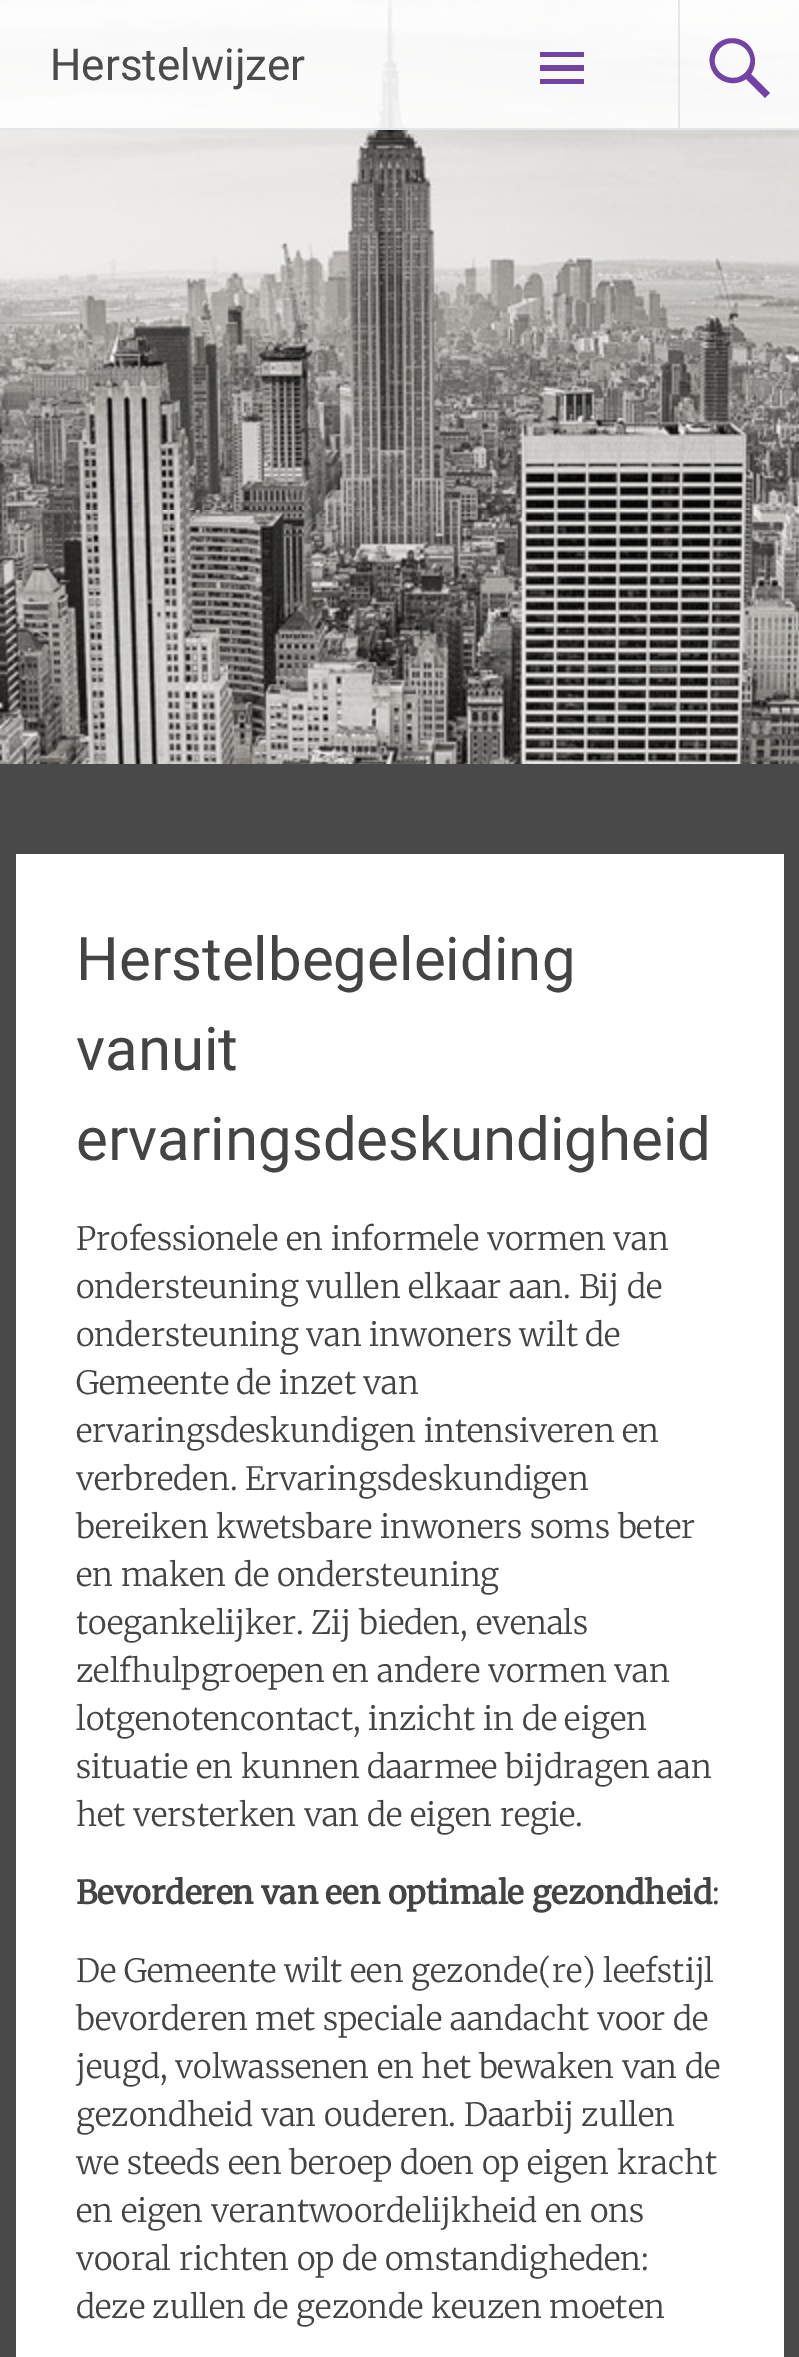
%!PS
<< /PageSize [799 2357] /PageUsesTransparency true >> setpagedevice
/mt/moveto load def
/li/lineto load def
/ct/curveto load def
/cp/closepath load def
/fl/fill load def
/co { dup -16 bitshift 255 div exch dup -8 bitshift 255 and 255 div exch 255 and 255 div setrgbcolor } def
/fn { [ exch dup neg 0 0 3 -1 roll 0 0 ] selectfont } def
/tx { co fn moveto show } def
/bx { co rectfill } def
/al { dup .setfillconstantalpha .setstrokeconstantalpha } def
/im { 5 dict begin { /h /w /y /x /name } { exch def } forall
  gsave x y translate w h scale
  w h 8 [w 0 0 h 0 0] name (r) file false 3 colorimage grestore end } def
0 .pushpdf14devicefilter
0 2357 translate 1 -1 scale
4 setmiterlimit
0 0 799 2357 16#FFFFFF bx
(media/1.raw) 0 0 799 764 im
0.9 al
0 0 799 130 16#FFFFFF bx
0 128 799 2 16#E1E4E6 bx
1 al
16#7242A4 co
540 84 mt 540 79 li 584 79 li 584 84 li cp 540 52 mt 584 52 li 584 57 li 540 57 li cp 540 71 mt 540 65 li 584 65 li 584 71 li cp fl
0.9 al
678 0 2 128 16#E1E4E6 bx
16#632E9B co
770 93 mt 765 98 li 746 79 li 735 87 718 83 712 70 ct 710 66 709 61 710 56 ct 715 33 748 32 754 55 ct 756 61 755 68 751 74 ct cp 717 52 mt 706 72 736 89 748 69 ct 759 49 729 32 717 52 ct cp fl
1 al
0 764 799 1593 16#494949 bx
16 854 768 1503 16#FFFFFF bx
(Herstelwijzer) 50 80 /Roboto-Regular 44 16#4B4B4B tx
(Herstelbegeleiding) 76 980 /Roboto-Regular 60 16#444444 tx
(vanuit) 76 1070 /Roboto-Regular 60 16#444444 tx
(ervaringsdeskundigheid) 76 1160 /Roboto-Regular 60 16#444444 tx
(Professionele en informele vormen van) 76 1250 /Merriweather-Light 32 16#444444 tx
(ondersteuning vullen elkaar aan. Bij de) 76 1298 /Merriweather-Light 32 16#444444 tx
(ondersteuning van inwoners wilt de) 76 1346 /Merriweather-Light 32 16#444444 tx
(Gemeente de inzet van) 76 1394 /Merriweather-Light 32 16#444444 tx
(ervaringsdeskundigen intensiveren en) 76 1442 /Merriweather-Light 32 16#444444 tx
(verbreden. Ervaringsdeskundigen) 76 1490 /Merriweather-Light 32 16#444444 tx
(bereiken kwetsbare inwoners soms beter) 76 1538 /Merriweather-Light 32 16#444444 tx
(en maken de ondersteuning) 76 1586 /Merriweather-Light 32 16#444444 tx
(toegankelijker. Zij bieden, evenals) 76 1634 /Merriweather-Light 32 16#444444 tx
(zelfhulpgroepen en andere vormen van) 76 1682 /Merriweather-Light 32 16#444444 tx
(lotgenotencontact, inzicht in de eigen) 76 1730 /Merriweather-Light 32 16#444444 tx
(situatie en kunnen daarmee bijdragen aan) 76 1778 /Merriweather-Light 32 16#444444 tx
(het versterken van de eigen regie.) 76 1826 /Merriweather-Light 32 16#444444 tx
(Bevorderen van een optimale gezondheid) 76 1904 /Merriweather-Bold 32 16#444444 tx
(:) 712 1904 /Merriweather-Light 32 16#444444 tx
(De Gemeente wilt een gezonde\(re\) leefstijl) 76 1982 /Merriweather-Light 32 16#444444 tx
(bevorderen met speciale aandacht voor de) 76 2030 /Merriweather-Light 32 16#444444 tx
(jeugd, volwassenen en het bewaken van de) 76 2078 /Merriweather-Light 32 16#444444 tx
(gezondheid van ouderen. Daarbij zullen) 76 2126 /Merriweather-Light 32 16#444444 tx
(we steeds een beroep doen op eigen kracht) 76 2174 /Merriweather-Light 32 16#444444 tx
(en eigen verantwoordelijkheid en ons) 76 2222 /Merriweather-Light 32 16#444444 tx
(vooral richten op de omstandigheden:) 76 2270 /Merriweather-Light 32 16#444444 tx
(deze zullen de gezonde keuzen moeten) 76 2318 /Merriweather-Light 32 16#444444 tx
.poppdf14devicefilter showpage
